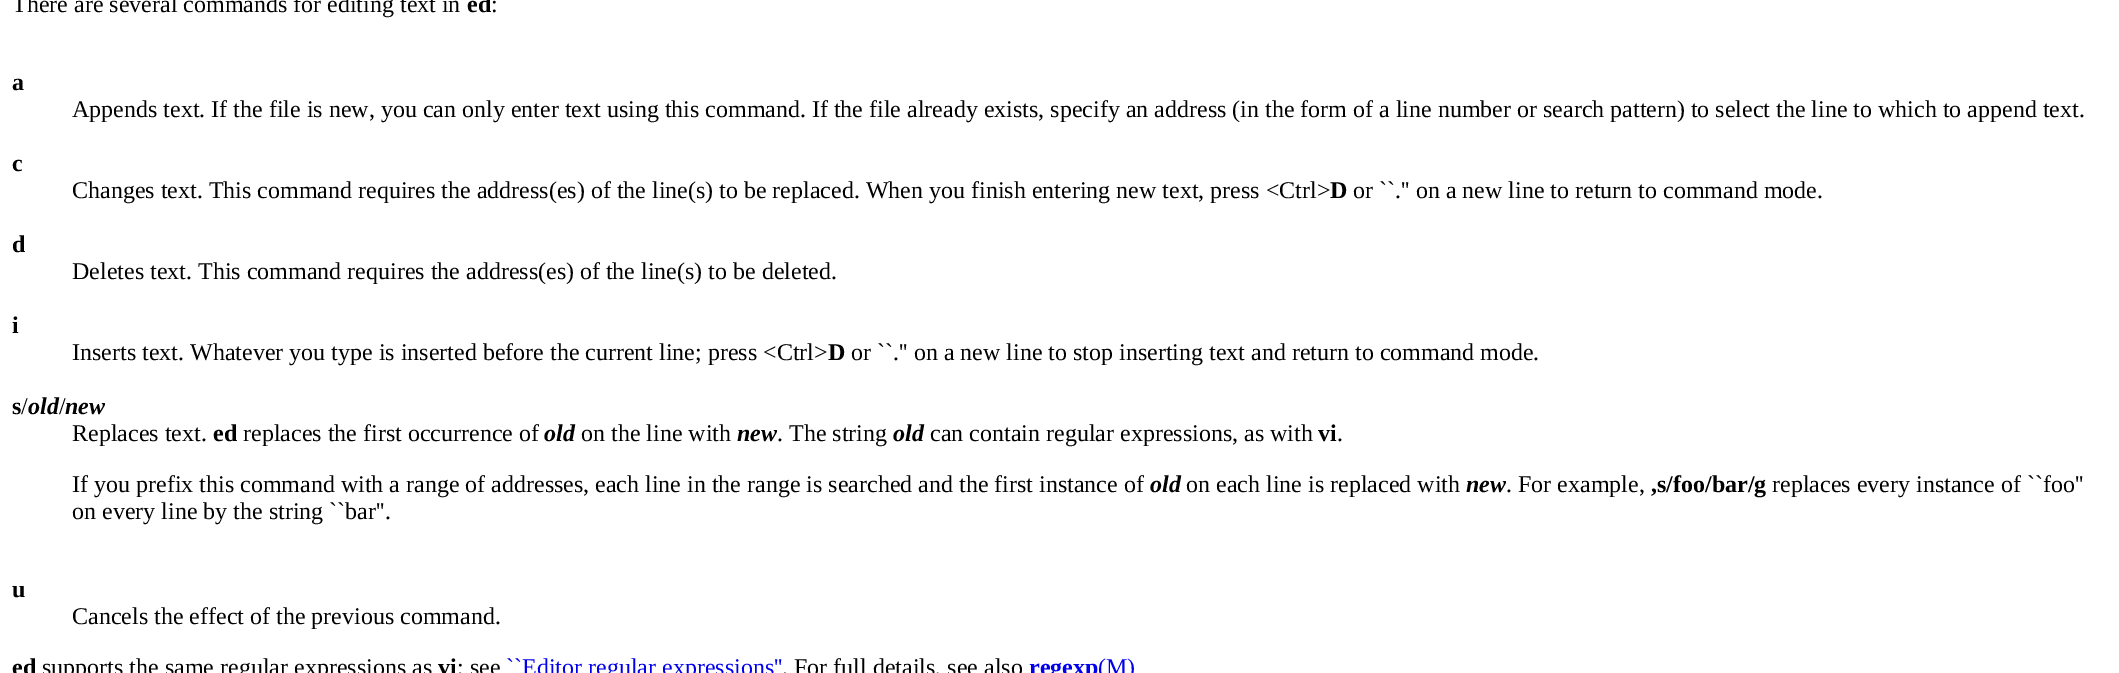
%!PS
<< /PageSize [2119 673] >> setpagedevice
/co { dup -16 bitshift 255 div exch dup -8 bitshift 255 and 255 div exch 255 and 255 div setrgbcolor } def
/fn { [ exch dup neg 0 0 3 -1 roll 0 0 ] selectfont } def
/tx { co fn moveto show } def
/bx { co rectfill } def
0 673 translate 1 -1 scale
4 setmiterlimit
0 0 2119 673 16#FFFFFF bx
(There are several commands for editing text in) 12 12 /LiberationSerif-Regular 24 16#000000 tx
(ed) 467 12 /LiberationSerif-Bold 24 16#000000 tx
(:) 491 12 /LiberationSerif-Regular 24 16#000000 tx
(a) 12 90 /LiberationSerif-Bold 24 16#000000 tx
(Appends text. If the file is new, you can only enter text using this command. If the file already exists, specify an address \(in the form of a line number or search pattern\) to select the line to which to append text.) 72 117 /LiberationSerif-Regular 24 16#000000 tx
(c) 12 171 /LiberationSerif-Bold 24 16#000000 tx
(Changes text. This command requires the address\(es\) of the line\(s\) to be replaced. When you finish entering new text, press <Ctrl>) 72 198 /LiberationSerif-Regular 24 16#000000 tx
(D) 1330 198 /LiberationSerif-Bold 24 16#000000 tx
(or ``.'' on a new line to return to command mode.) 1353 198 /LiberationSerif-Regular 24 16#000000 tx
(d) 12 252 /LiberationSerif-Bold 24 16#000000 tx
(Deletes text. This command requires the address\(es\) of the line\(s\) to be deleted.) 72 279 /LiberationSerif-Regular 24 16#000000 tx
(i) 12 333 /LiberationSerif-Bold 24 16#000000 tx
(Inserts text. Whatever you type is inserted before the current line; press <Ctrl>) 72 360 /LiberationSerif-Regular 24 16#000000 tx
(D) 828 360 /LiberationSerif-Bold 24 16#000000 tx
(or ``.'' on a new line to stop inserting text and return to command mode.) 851 360 /LiberationSerif-Regular 24 16#000000 tx
(s) 12 414 /LiberationSerif-Bold 24 16#000000 tx
(/) 21 414 /LiberationSerif-Regular 24 16#000000 tx
(old) 28 414 /LiberationSerif-BoldItalic 24 16#000000 tx
(/) 59 414 /LiberationSerif-Regular 24 16#000000 tx
(new) 65 414 /LiberationSerif-BoldItalic 24 16#000000 tx
(Replaces text.) 72 441 /LiberationSerif-Regular 24 16#000000 tx
(ed) 213 441 /LiberationSerif-Bold 24 16#000000 tx
(replaces the first occurrence of) 243 441 /LiberationSerif-Regular 24 16#000000 tx
(old) 544 441 /LiberationSerif-BoldItalic 24 16#000000 tx
(on the line with) 581 441 /LiberationSerif-Regular 24 16#000000 tx
(new) 737 441 /LiberationSerif-BoldItalic 24 16#000000 tx
(. The string) 777 441 /LiberationSerif-Regular 24 16#000000 tx
(old) 893 441 /LiberationSerif-BoldItalic 24 16#000000 tx
(can contain regular expressions, as with) 930 441 /LiberationSerif-Regular 24 16#000000 tx
(vi) 1318 441 /LiberationSerif-Bold 24 16#000000 tx
(.) 1337 441 /LiberationSerif-Regular 24 16#000000 tx
(If you prefix this command with a range of addresses, each line in the range is searched and the first instance of) 72 492 /LiberationSerif-Regular 24 16#000000 tx
(old) 1150 492 /LiberationSerif-BoldItalic 24 16#000000 tx
(on each line is replaced with) 1186 492 /LiberationSerif-Regular 24 16#000000 tx
(new) 1466 492 /LiberationSerif-BoldItalic 24 16#000000 tx
(. For example,) 1506 492 /LiberationSerif-Regular 24 16#000000 tx
(,s/foo/bar/g) 1651 492 /LiberationSerif-Bold 24 16#000000 tx
(replaces every instance of ``foo'') 1772 492 /LiberationSerif-Regular 24 16#000000 tx
(on every line by the string ``bar''.) 72 519 /LiberationSerif-Regular 24 16#000000 tx
(u) 12 597 /LiberationSerif-Bold 24 16#000000 tx
(Cancels the effect of the previous command.) 72 624 /LiberationSerif-Regular 24 16#000000 tx
(ed) 12 675 /LiberationSerif-Bold 24 16#000000 tx
(supports the same regular expressions as) 42 675 /LiberationSerif-Regular 24 16#000000 tx
(vi) 438 675 /LiberationSerif-Bold 24 16#000000 tx
(; see) 457 675 /LiberationSerif-Regular 24 16#000000 tx
(``Editor regular expressions'') 506 675 /LiberationSerif-Regular 24 16#0000EE tx
(. For full details, see also) 782 675 /LiberationSerif-Regular 24 16#000000 tx
(regexp) 1029 675 /LiberationSerif-Bold 24 16#0000EE tx
(\(M\)) 1098 675 /LiberationSerif-Regular 24 16#0000EE tx
showpage
